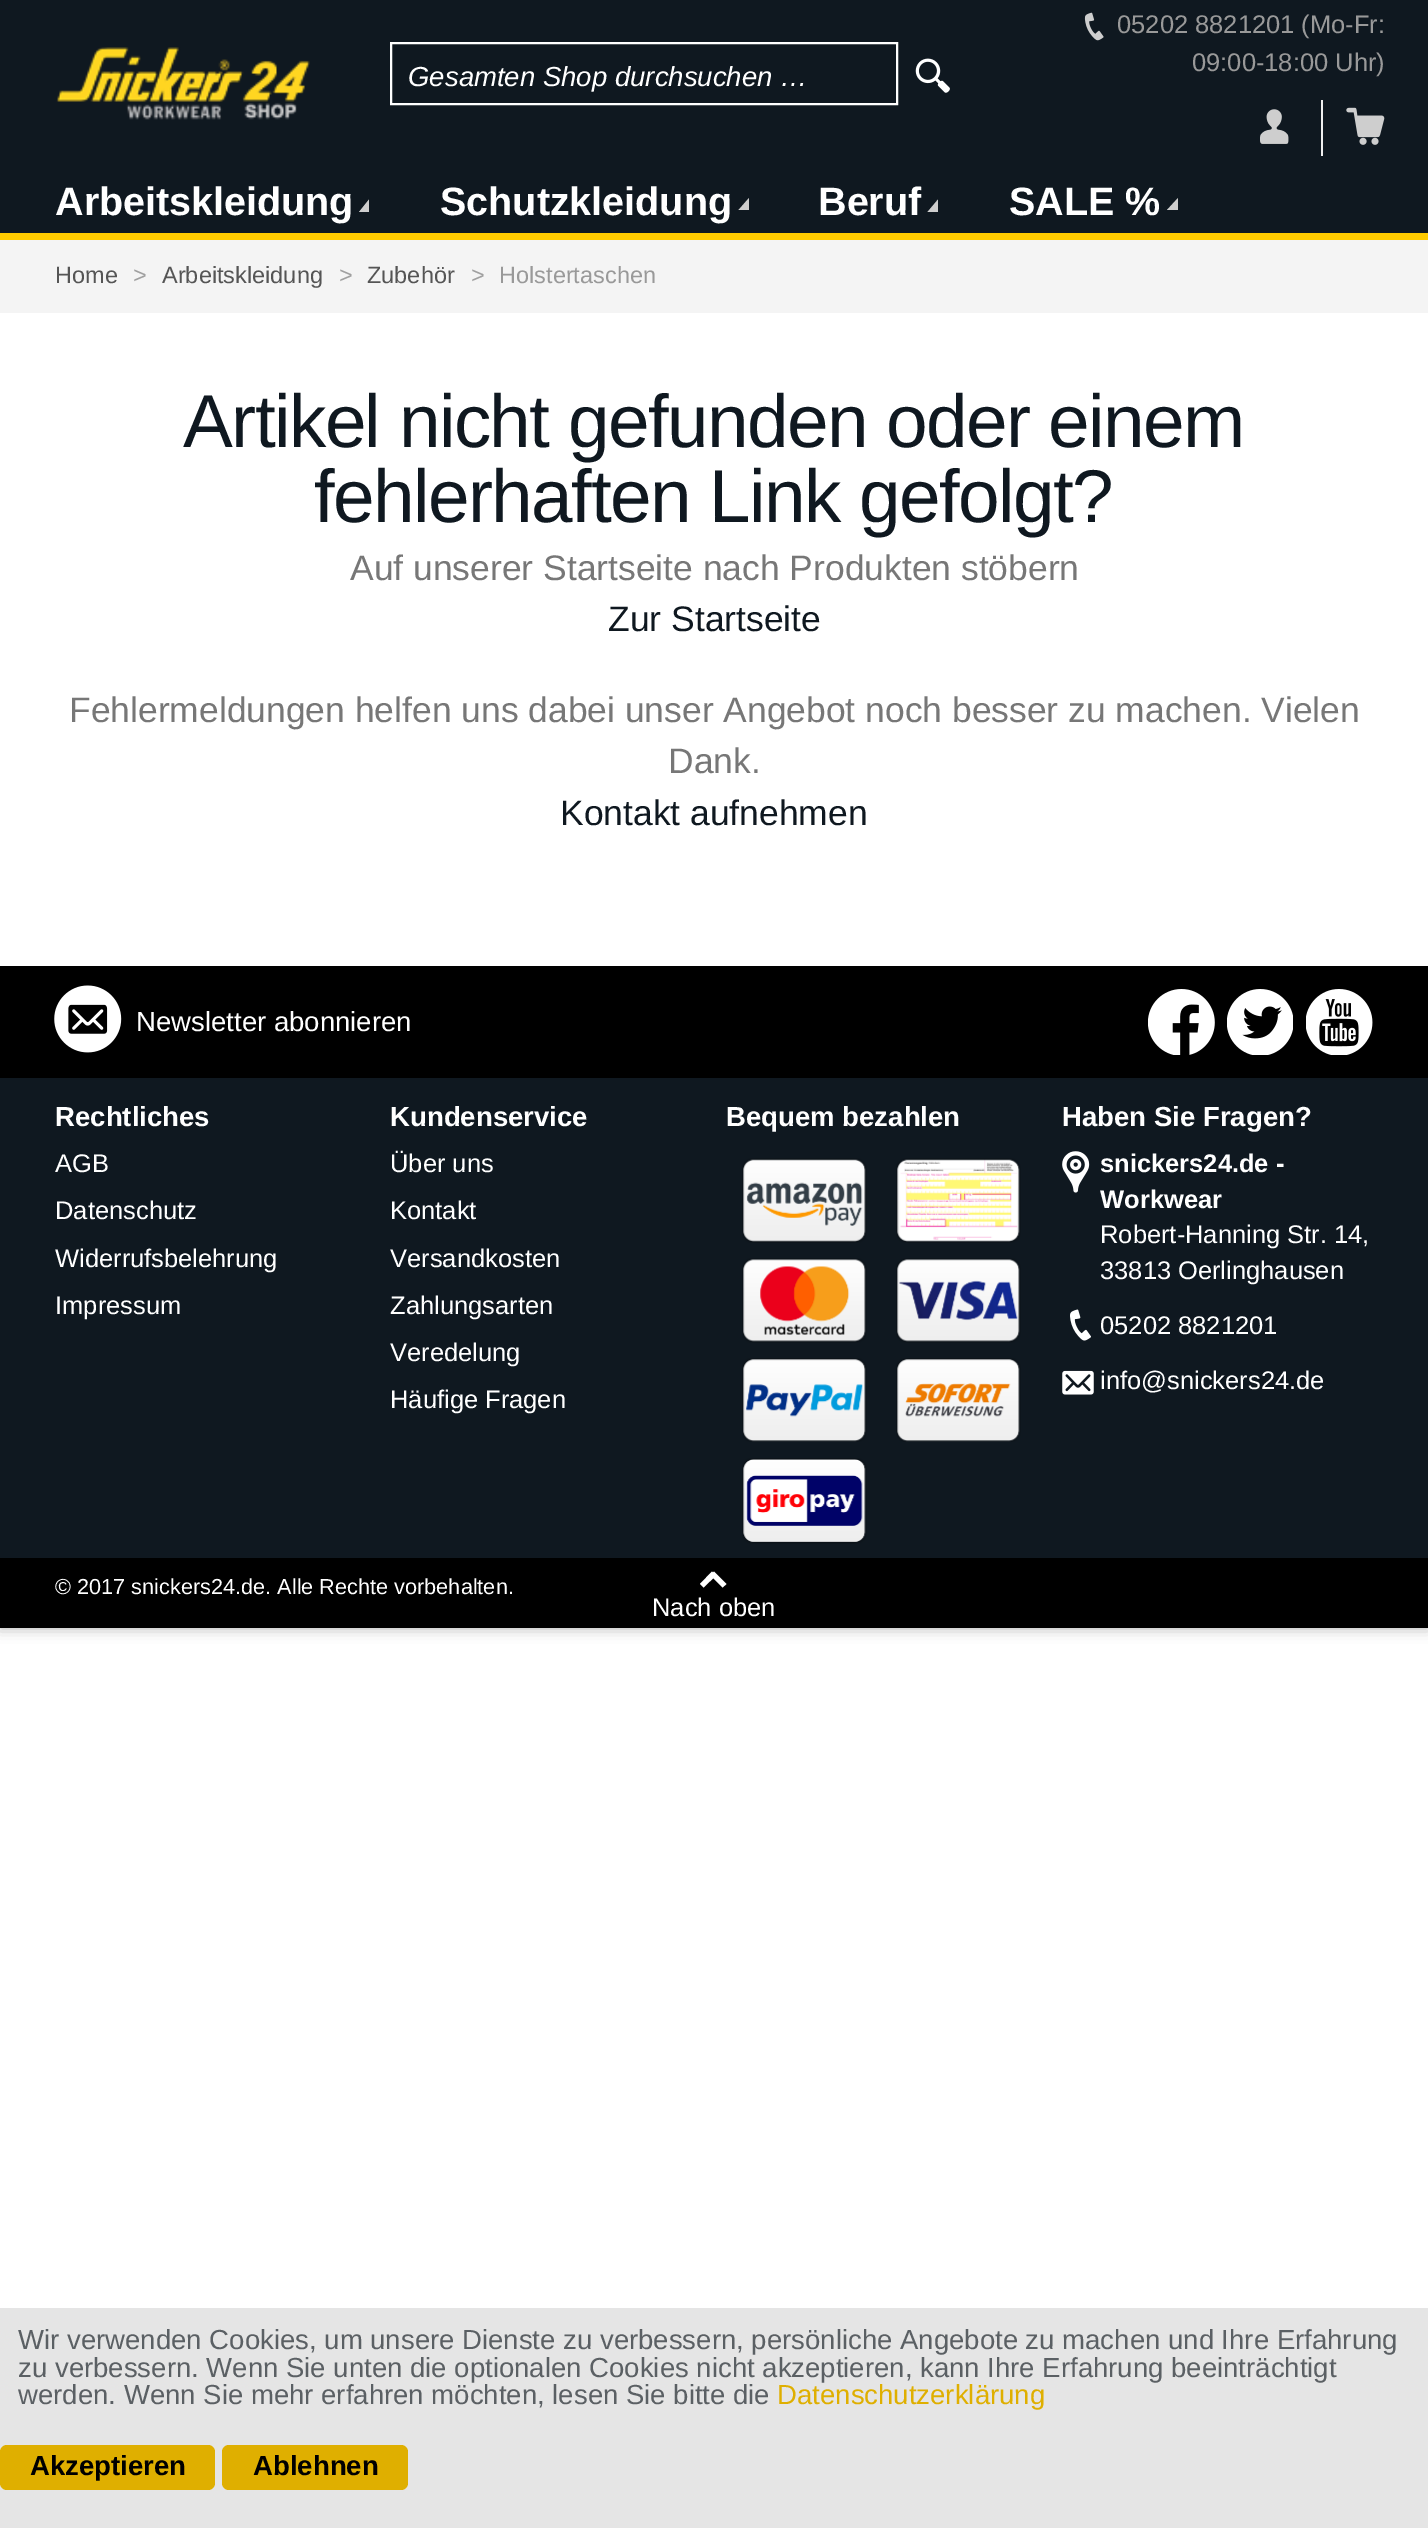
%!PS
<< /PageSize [1428 2528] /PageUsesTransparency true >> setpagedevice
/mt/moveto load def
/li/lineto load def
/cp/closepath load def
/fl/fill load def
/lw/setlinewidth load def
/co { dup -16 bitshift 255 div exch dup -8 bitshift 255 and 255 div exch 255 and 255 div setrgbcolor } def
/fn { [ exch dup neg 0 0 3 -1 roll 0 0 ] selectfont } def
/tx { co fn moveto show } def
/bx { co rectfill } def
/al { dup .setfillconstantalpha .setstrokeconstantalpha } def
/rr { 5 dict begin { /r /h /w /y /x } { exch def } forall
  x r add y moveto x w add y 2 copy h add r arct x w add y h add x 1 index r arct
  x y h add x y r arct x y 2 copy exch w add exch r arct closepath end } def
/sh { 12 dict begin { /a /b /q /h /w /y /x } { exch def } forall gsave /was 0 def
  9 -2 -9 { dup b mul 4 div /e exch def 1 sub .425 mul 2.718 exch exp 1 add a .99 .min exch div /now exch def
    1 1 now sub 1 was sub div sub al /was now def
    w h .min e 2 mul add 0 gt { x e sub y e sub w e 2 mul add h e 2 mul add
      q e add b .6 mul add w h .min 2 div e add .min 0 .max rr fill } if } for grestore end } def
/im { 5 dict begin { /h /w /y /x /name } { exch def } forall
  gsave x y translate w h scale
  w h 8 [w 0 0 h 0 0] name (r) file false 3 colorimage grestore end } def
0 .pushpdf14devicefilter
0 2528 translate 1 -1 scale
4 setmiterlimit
0 0 1428 2528 16#FFFFFF bx
16#323232 co
0 0 1428 1628 0 7 .4 sh
0 313 1428 653 16#FFFFFF bx
0 0 1428 233 16#0F1820 bx
0 233 1428 7 16#FFCB00 bx
(media/1.raw) 56 47 254 73 im
16#FFFFFF co
2 lw
391 43 506 61 rectstroke
(media/2.raw) 915 58 35 35 im
(media/3.raw) 1084 12 20 29 im
1321 100 2 56 16#EFEFEF bx
(media/4.raw) 1260 109 29 35 im
(media/5.raw) 1346 107 39 38 im
16#CECECE co
369 212 mt 359 212 li 369 199.5 li cp fl
749 210 mt 738.5 210 li 749 198 li cp fl
938 212 mt 927.5 212 li 938 199.5 li cp fl
1178 210 mt 1167 210 li 1178 198 li cp fl
0 240 1428 73 16#F4F4F4 bx
0 966 1428 112 16#000000 bx
(media/6.raw) 54 985 68 68 im
(media/7.raw) 1148 989 67 66 im
(media/8.raw) 1227 989 66 66 im
(media/9.raw) 1306 989 67 66 im
0 1078 1428 480 16#0F1820 bx
(media/10.raw) 742 1158 125 85 im
(media/11.raw) 896 1158 125 85 im
(media/12.raw) 742 1258 125 85 im
(media/13.raw) 896 1258 125 85 im
(media/14.raw) 742 1358 125 84 im
(media/15.raw) 896 1358 125 84 im
(media/16.raw) 742 1458 125 86 im
(media/17.raw) 1062 1151 28 42 im
(media/18.raw) 1070 1309 21 32 im
(media/19.raw) 1062 1370 32 25 im
0 1558 1428 70 16#000000 bx
16#FFFFFF co
712 1571.5 mt 716 1575.5 li 703.5 1587.5 li 700 1584 li cp fl
726.5 1584 mt 722.5 1587.5 li 710.5 1575.5 li 714 1571.5 li cp fl
0 2308 1428 220 16#E5E5E5 bx
16#DFAF00 co
0 2445 215 45 7 rr fl
222 2445 186 45 7 rr fl
(Gesamten Shop durchsuchen …) 408 86 /LiberationSans-Italic 27.55 16#FFFFFF tx
(05202 8821201 \(Mo-Fr:) 1117 33 /LiberationSans-Regular 25.5 16#999999 tx
(09:00-18:00 Uhr\)) 1192 71 /LiberationSans-Regular 25.5 16#999999 tx
(Arbeitskleidung) 55 215 /LiberationSans-Bold 39.5 16#FFFFFF tx
(Schutzkleidung) 440 215 /LiberationSans-Bold 39.5 16#FFFFFF tx
(Beruf) 818 215 /LiberationSans-Bold 39.5 16#FFFFFF tx
(SALE %) 1009 215 /LiberationSans-Bold 39.5 16#FFFFFF tx
(Home) 55 283 /LiberationSans-Regular 23.5 16#555555 tx
(>) 133 283 /LiberationSans-Regular 23.5 16#A0A0A0 tx
(Arbeitskleidung) 162 283 /LiberationSans-Regular 23.5 16#555555 tx
(>) 339 283 /LiberationSans-Regular 23.5 16#A0A0A0 tx
(Zubehör) 367 283 /LiberationSans-Regular 23.5 16#555555 tx
(>) 471 283 /LiberationSans-Regular 23.5 16#A0A0A0 tx
(Holstertaschen) 499 283 /LiberationSans-Regular 23.5 16#999999 tx
/LiberationSans-Regular 74.75 fn
16#0F1820 co
183 447 mt -1.6 0 (Artikel nicht gefunden oder einem) ashow
314 522 mt -1.6 0 (fehlerhaften Link gefolgt?) ashow
(Auf unserer Startseite nach Produkten stöbern) 350 580 /LiberationSans-Regular 35.45 16#777777 tx
(Zur Startseite) 608 631 /LiberationSans-Regular 35.45 16#0F1820 tx
(Fehlermeldungen helfen uns dabei unser Angebot noch besser zu machen. Vielen) 69 722 /LiberationSans-Regular 35.45 16#777777 tx
(Dank.) 668 773 /LiberationSans-Regular 35.45 16#777777 tx
(Kontakt aufnehmen) 560 825 /LiberationSans-Regular 35.45 16#0F1820 tx
(Newsletter abonnieren) 136 1031 /LiberationSans-Regular 27.55 16#FFFFFF tx
(Rechtliches) 55 1126 /LiberationSans-Bold 27.55 16#FFFFFF tx
(AGB) 55 1172 /LiberationSans-Regular 25.5 16#FFFFFF tx
(Datenschutz) 55 1219 /LiberationSans-Regular 25.5 16#FFFFFF tx
(Widerrufsbelehrung) 55 1267 /LiberationSans-Regular 25.5 16#FFFFFF tx
(Impressum) 55 1314 /LiberationSans-Regular 25.5 16#FFFFFF tx
(Kundenservice) 390 1126 /LiberationSans-Bold 27.55 16#FFFFFF tx
(Über uns) 390 1172 /LiberationSans-Regular 25.5 16#FFFFFF tx
(Kontakt) 390 1219 /LiberationSans-Regular 25.5 16#FFFFFF tx
(Versandkosten) 390 1267 /LiberationSans-Regular 25.5 16#FFFFFF tx
(Zahlungsarten) 390 1314 /LiberationSans-Regular 25.5 16#FFFFFF tx
(Veredelung) 390 1361 /LiberationSans-Regular 25.5 16#FFFFFF tx
(Häufige Fragen) 390 1408 /LiberationSans-Regular 25.5 16#FFFFFF tx
(Bequem bezahlen) 726 1126 /LiberationSans-Bold 27.55 16#FFFFFF tx
(Haben Sie Fragen?) 1062 1126 /LiberationSans-Bold 27.55 16#FFFFFF tx
(snickers24.de -) 1100 1172 /LiberationSans-Bold 25.5 16#FFFFFF tx
(Workwear) 1100 1208 /LiberationSans-Bold 25.5 16#FFFFFF tx
(Robert-Hanning Str. 14,) 1100 1243 /LiberationSans-Regular 25.5 16#FFFFFF tx
(33813 Oerlinghausen) 1100 1279 /LiberationSans-Regular 25.5 16#FFFFFF tx
(05202 8821201) 1100 1334 /LiberationSans-Regular 25.5 16#FFFFFF tx
(info@snickers24.de) 1100 1389 /LiberationSans-Regular 25.5 16#FFFFFF tx
(© 2017 snickers24.de. Alle Rechte vorbehalten.) 55 1594 /LiberationSans-Regular 21.7 16#FFFFFF tx
(Nach oben) 652 1616 /LiberationSans-Regular 25.5 16#FFFFFF tx
(Wir verwenden Cookies, um unsere Dienste zu verbessern, persönliche Angebote zu machen und Ihre Erfahrung) 18 2349 /LiberationSans-Regular 27.55 16#5B6064 tx
(zu verbessern. Wenn Sie unten die optionalen Cookies nicht akzeptieren, kann Ihre Erfahrung beeinträchtigt) 18 2377 /LiberationSans-Regular 27.55 16#5B6064 tx
(werden. Wenn Sie mehr erfahren möchten, lesen Sie bitte die) 18 2404 /LiberationSans-Regular 27.55 16#5B6064 tx
(Datenschutzerklärung) 777 2404 /LiberationSans-Regular 27.55 16#DFAF00 tx
(Akzeptieren) 30 2475 /LiberationSans-Bold 27.55 16#000000 tx
(Ablehnen) 253 2475 /LiberationSans-Bold 27.55 16#000000 tx
.poppdf14devicefilter showpage
